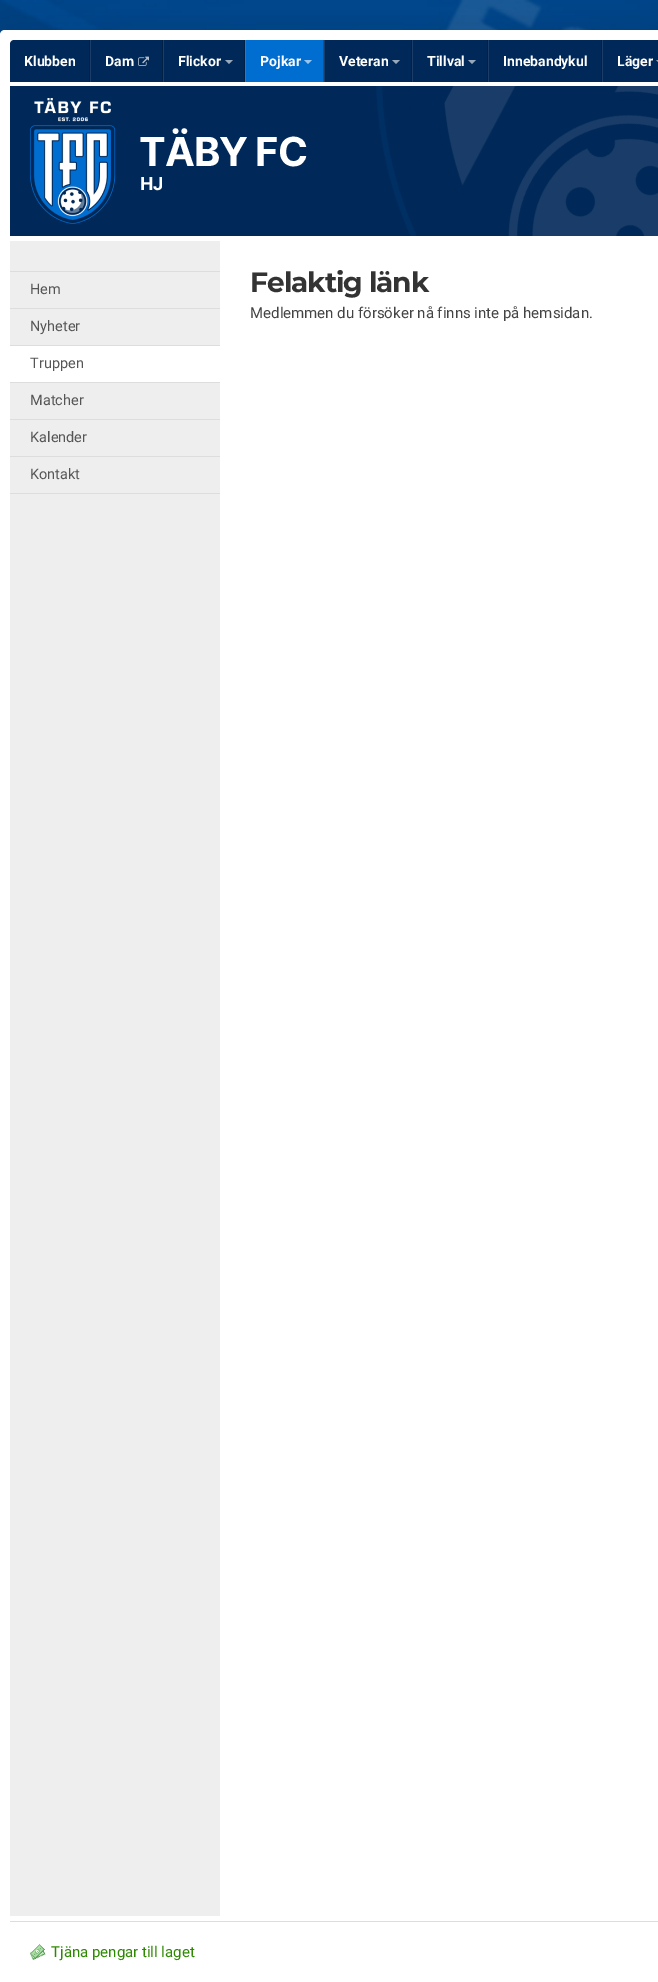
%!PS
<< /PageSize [658 1982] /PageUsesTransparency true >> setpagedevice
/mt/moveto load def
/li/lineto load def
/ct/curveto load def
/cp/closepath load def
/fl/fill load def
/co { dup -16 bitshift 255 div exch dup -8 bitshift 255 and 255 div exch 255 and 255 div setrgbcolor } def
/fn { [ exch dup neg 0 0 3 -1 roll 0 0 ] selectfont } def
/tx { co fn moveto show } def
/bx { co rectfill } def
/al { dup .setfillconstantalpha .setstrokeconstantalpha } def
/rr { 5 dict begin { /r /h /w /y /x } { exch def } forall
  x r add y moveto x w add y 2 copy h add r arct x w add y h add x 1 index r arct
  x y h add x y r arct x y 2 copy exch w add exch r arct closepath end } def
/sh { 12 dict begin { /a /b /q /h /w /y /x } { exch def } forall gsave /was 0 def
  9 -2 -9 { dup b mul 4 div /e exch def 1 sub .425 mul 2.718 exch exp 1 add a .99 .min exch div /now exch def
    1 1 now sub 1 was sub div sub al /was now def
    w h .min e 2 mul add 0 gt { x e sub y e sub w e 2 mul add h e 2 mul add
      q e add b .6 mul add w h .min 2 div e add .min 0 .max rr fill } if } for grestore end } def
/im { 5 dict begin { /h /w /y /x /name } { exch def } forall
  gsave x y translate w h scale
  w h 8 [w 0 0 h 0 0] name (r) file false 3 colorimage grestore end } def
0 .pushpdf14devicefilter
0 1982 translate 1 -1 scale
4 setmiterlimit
0 0 658 1982 16#FFFFFF bx
(media/1.raw) 0 0 658 35 im
16#000000 co
-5 25 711 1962 10 12.5 .08 sh
16#FFFFFF co
5 30 mt 658 30 li 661 30 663 32 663 35 ct 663 1982 li 0 1982 li 0 35 li 0 32 2 30 5 30 ct cp fl
16#002858 co
14 40 mt 658 40 li 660 40 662 42 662 44 ct 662 82 li 10 82 li 10 44 li 10 42 12 40 14 40 ct cp fl
89 40 1 42 16#002046 bx
162 40 1 42 16#002046 bx
90 40 1 42 16#1A3E69 bx
(media/2.raw) 138 56 11 10 im
244 40 1 42 16#002046 bx
163 40 1 42 16#1A3E69 bx
16#99A9BC co
225 60 mt 233 60 li 229 64 li cp fl
246 40 77 42 16#006ED1 bx
323 40 1 42 16#0058A7 bx
245 40 1 42 16#1A7DD6 bx
16#99C5ED co
304 60 mt 312 60 li 308 64 li cp fl
411 40 1 42 16#002046 bx
324 40 1 42 16#1A3E69 bx
16#99A9BC co
392 60 mt 400 60 li 396 64 li cp fl
487 40 1 42 16#002046 bx
412 40 1 42 16#1A3E69 bx
16#99A9BC co
468 60 mt 476 60 li 472 64 li cp fl
601 40 1 42 16#002046 bx
488 40 1 42 16#1A3E69 bx
602 40 1 42 16#1A3E69 bx
16#99A9BC co
656 60 mt 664 60 li 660 64 li cp fl
10 86 648 150 16#002858 bx
(media/3.raw) 30 86 628 150 im
10 241 210 1675 16#EEEEEE bx
10 271 210 1 16#DDDDDD bx
10 308 210 1 16#DDDDDD bx
10 345 210 1 16#DDDDDD bx
10 346 210 36 16#FFFFFF bx
10 382 210 1 16#DDDDDD bx
10 419 210 1 16#DDDDDD bx
10 456 210 1 16#DDDDDD bx
10 493 210 1 16#DDDDDD bx
10 1921 648 1 16#DDDDDD bx
(media/4.raw) 30 1944 16 16 im
(Klubben) 24 66 /Roboto-Bold 14 16#FFFFFF tx
(Dam) 105 66 /Roboto-Bold 14 16#FFFFFF tx
(Flickor) 178 66 /Roboto-Bold 14 16#FFFFFF tx
(Pojkar) 260 66 /Roboto-Bold 14 16#FFFFFF tx
(Veteran) 339 66 /Roboto-Bold 14 16#FFFFFF tx
(Tillval) 427 66 /Roboto-Bold 14 16#FFFFFF tx
(Innebandykul) 503 66 /Roboto-Bold 14 16#FFFFFF tx
(Läger) 617 66 /Roboto-Bold 14 16#FFFFFF tx
/Inter-Bold 40 fn
139 166 mt -1 0 (TÄBY FC) ashow
(HJ) 140 190 /Inter-Bold 18 16#FFFFFF tx
(Hem) 30 294 /Roboto-Regular 14.5 16#555555 tx
(Nyheter) 30 331 /Roboto-Regular 14.5 16#555555 tx
(Truppen) 30 368 /Roboto-Regular 14.5 16#555555 tx
(Matcher) 30 405 /Roboto-Regular 14.5 16#555555 tx
(Kalender) 30 442 /Roboto-Regular 14.5 16#555555 tx
(Kontakt) 30 479 /Roboto-Regular 14.5 16#555555 tx
/Montserrat-Thin 28 fn
16#333333 co
250 292 mt -1 0 (Felaktig länk) ashow
(Medlemmen du försöker nå finns inte på hemsidan.) 250 318 /Roboto-Regular 15 16#444444 tx
(Tjäna pengar till laget) 51 1957 /Roboto-Regular 15 16#2D8900 tx
.poppdf14devicefilter showpage
